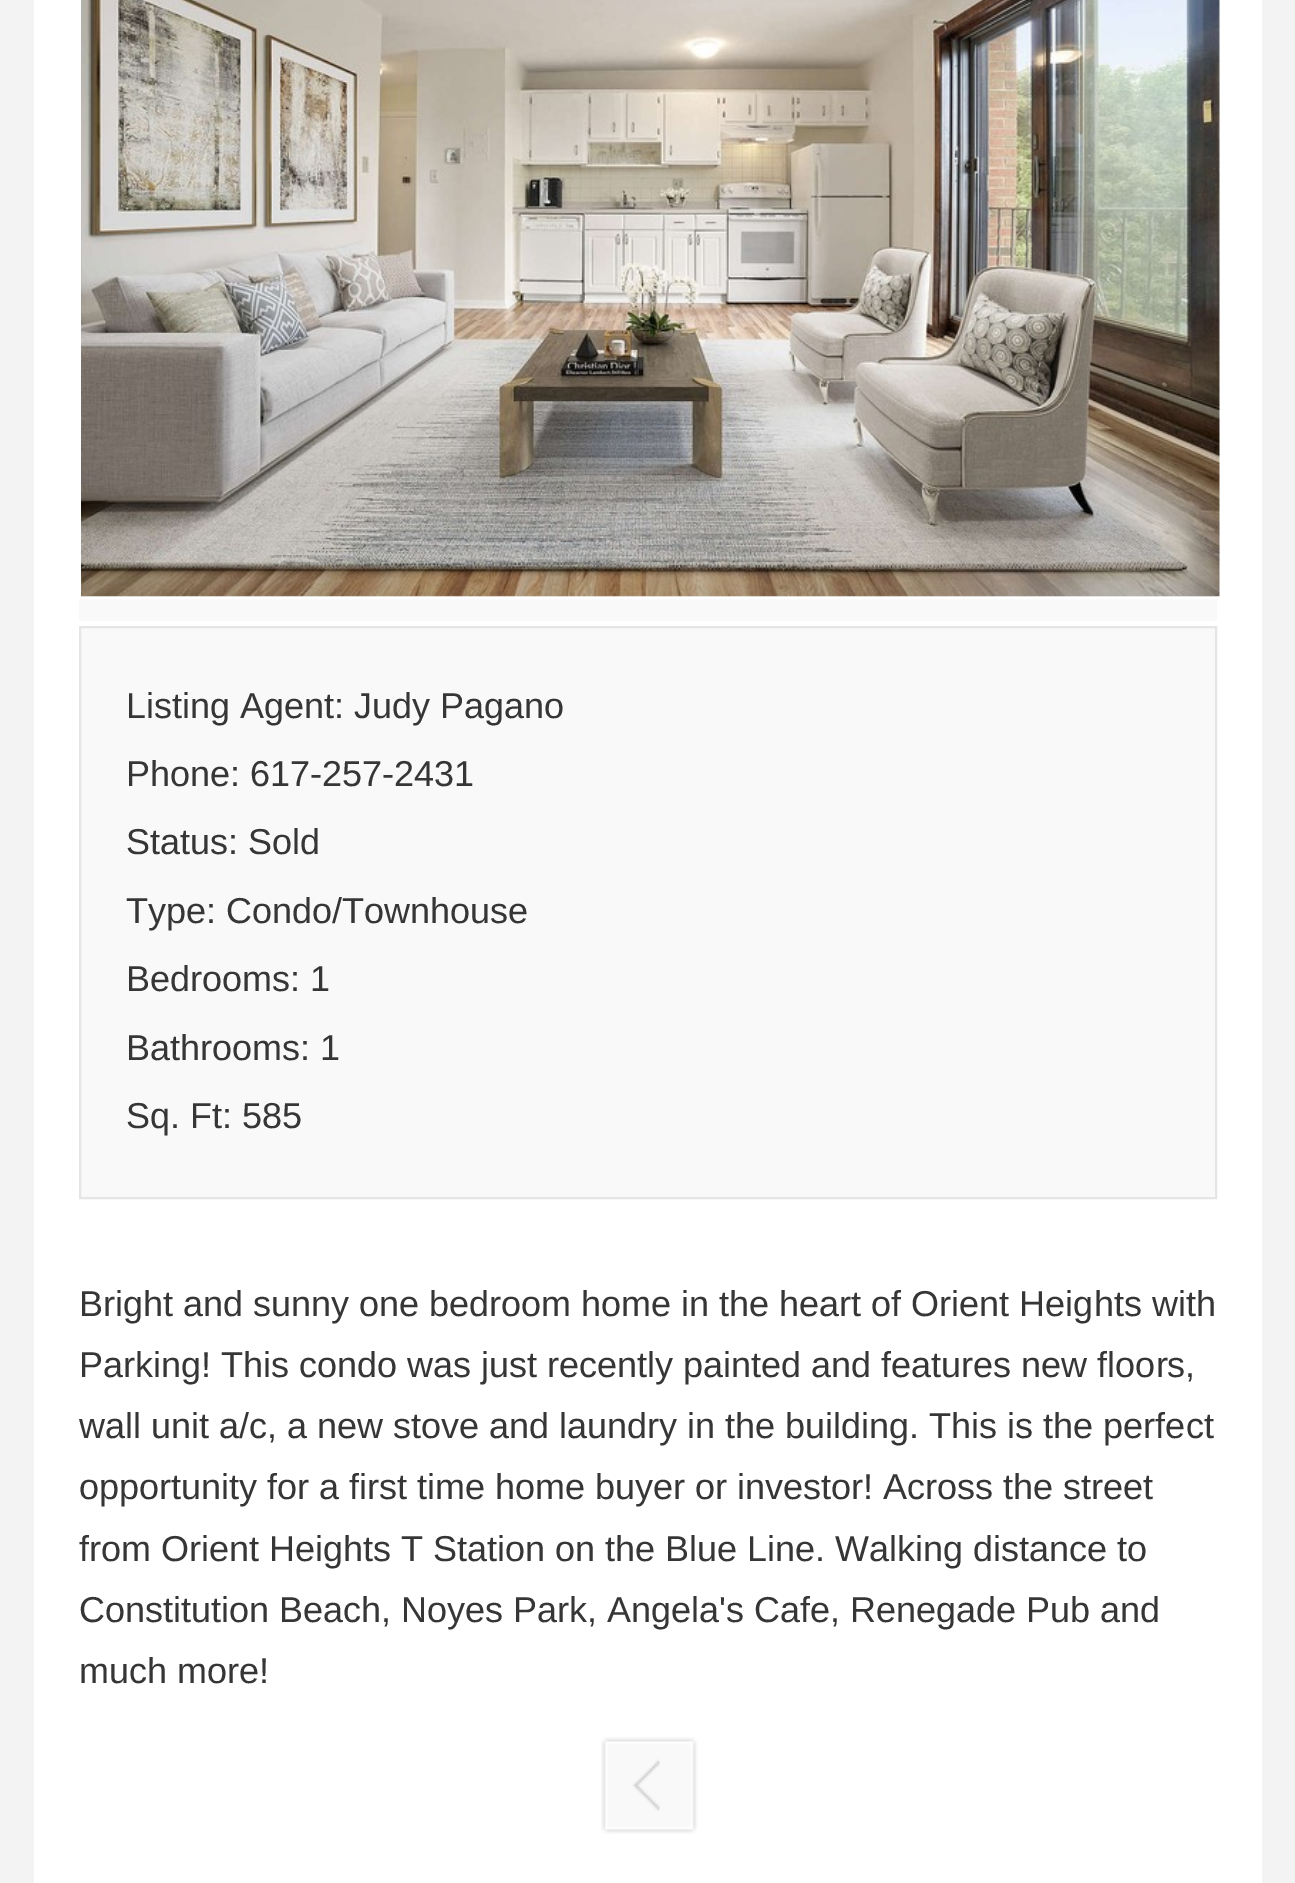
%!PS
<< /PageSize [1295 1883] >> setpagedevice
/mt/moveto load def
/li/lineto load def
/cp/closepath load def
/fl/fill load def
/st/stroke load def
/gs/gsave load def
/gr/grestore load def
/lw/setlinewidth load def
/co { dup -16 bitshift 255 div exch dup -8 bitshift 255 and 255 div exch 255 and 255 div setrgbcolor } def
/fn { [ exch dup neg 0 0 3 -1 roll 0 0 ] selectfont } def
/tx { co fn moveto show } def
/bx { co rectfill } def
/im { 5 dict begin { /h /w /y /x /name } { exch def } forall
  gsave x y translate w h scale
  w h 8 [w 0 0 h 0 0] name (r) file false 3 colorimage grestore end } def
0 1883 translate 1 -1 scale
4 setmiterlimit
0 0 1295 1883 16#F3F3F3 bx
34 0 1228 1883 16#FFFFFF bx
79 596 1138 25 16#F9F9F9 bx
16#FFFFFF co
2 lw
80 -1 1141 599 rectstroke
(media/1.raw) 81 0 1139 597 im
16#F9F9F9 co
80 627 mt 1216 627 li 1216 1198 li 80 1198 li cp gs fl gr
16#E5E5E5 co
st
(media/2.raw) 601 1737 97 97 im
(Listing Agent: Judy Pagano) 126 718 /LiberationSans-Regular 36 16#363636 tx
(Phone: 617-257-2431) 126 786 /LiberationSans-Regular 36 16#363636 tx
(Status: Sold) 126 854 /LiberationSans-Regular 36 16#363636 tx
(Type: Condo/Townhouse) 126 923 /LiberationSans-Regular 36 16#363636 tx
(Bedrooms: 1) 126 991 /LiberationSans-Regular 36 16#363636 tx
(Bathrooms: 1) 126 1060 /LiberationSans-Regular 36 16#363636 tx
(Sq. Ft: 585) 126 1128 /LiberationSans-Regular 36 16#363636 tx
(Bright and sunny one bedroom home in the heart of Orient Heights with) 79 1316 /LiberationSans-Regular 36 16#363636 tx
(Parking! This condo was just recently painted and features new floors,) 79 1377 /LiberationSans-Regular 36 16#363636 tx
(wall unit a/c, a new stove and laundry in the building. This is the perfect) 79 1438 /LiberationSans-Regular 36 16#363636 tx
(opportunity for a first time home buyer or investor! Across the street) 79 1499 /LiberationSans-Regular 36 16#363636 tx
(from Orient Heights T Station on the Blue Line. Walking distance to) 79 1561 /LiberationSans-Regular 36 16#363636 tx
(Constitution Beach, Noyes Park, Angela's Cafe, Renegade Pub and) 79 1622 /LiberationSans-Regular 36 16#363636 tx
(much more!) 79 1683 /LiberationSans-Regular 36 16#363636 tx
showpage
